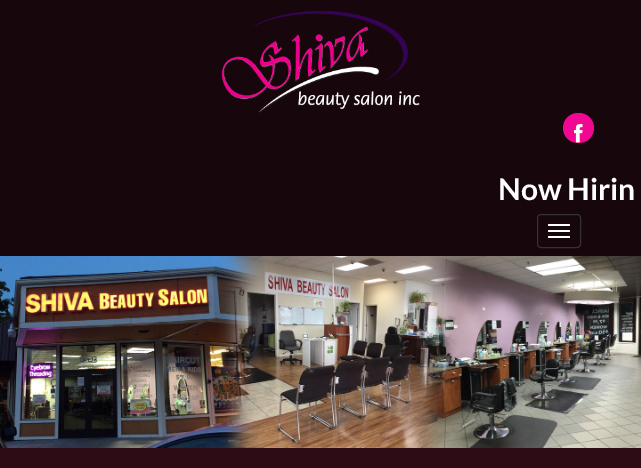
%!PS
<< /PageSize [641 468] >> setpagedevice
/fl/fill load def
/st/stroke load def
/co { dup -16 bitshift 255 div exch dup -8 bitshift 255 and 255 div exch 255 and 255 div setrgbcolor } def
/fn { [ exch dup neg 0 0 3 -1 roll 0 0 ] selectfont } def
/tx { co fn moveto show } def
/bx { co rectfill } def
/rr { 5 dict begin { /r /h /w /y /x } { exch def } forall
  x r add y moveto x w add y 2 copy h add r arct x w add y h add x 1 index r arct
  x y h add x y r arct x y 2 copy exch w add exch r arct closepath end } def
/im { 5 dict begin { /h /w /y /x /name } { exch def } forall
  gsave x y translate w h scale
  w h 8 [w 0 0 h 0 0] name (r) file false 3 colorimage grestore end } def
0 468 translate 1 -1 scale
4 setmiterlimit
0 0 641 468 16#2D0C16 bx
0 0 641 256 16#17060B bx
(media/1.raw) 221 10 199 103 im
16#F10792 co
563 113 31 30 15 rr fl
(media/2.raw) 574 124 9 19 im
16#333333 co
537.5 214.5 43 33 3.5 rr st
16#FFFFFF co
548 224 22 2 1 rr fl
548 230 22 2 1 rr fl
548 236 22 2 1 rr fl
(media/3.raw) 0 256 641 192 im
(Now Hirin) 498 200 /Lato-Bold 30 16#FFFFFF tx
showpage
